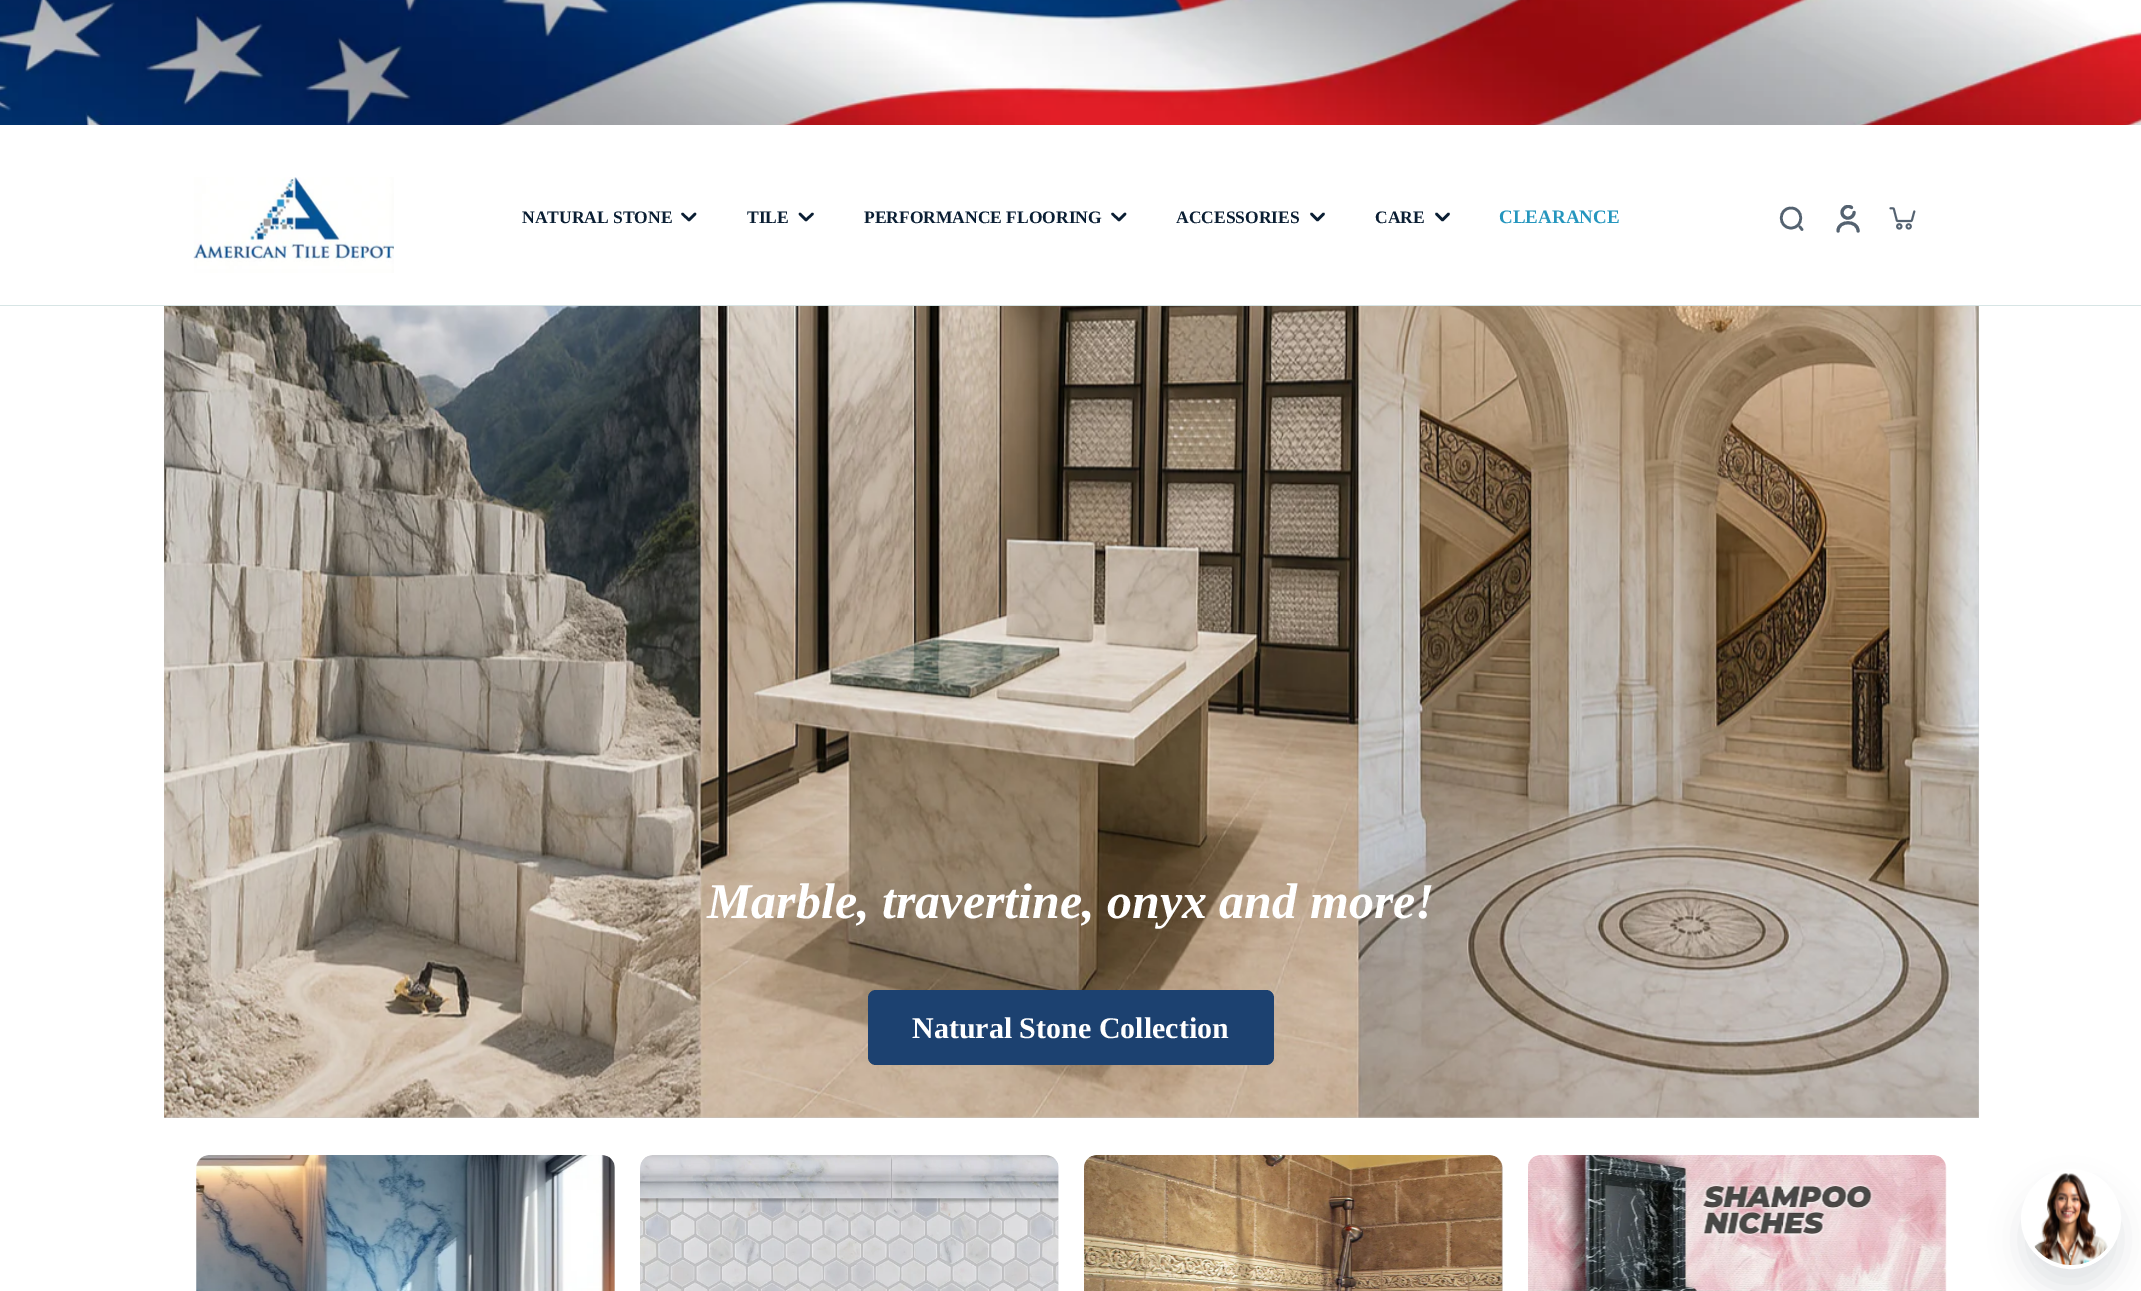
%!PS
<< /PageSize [2141 1291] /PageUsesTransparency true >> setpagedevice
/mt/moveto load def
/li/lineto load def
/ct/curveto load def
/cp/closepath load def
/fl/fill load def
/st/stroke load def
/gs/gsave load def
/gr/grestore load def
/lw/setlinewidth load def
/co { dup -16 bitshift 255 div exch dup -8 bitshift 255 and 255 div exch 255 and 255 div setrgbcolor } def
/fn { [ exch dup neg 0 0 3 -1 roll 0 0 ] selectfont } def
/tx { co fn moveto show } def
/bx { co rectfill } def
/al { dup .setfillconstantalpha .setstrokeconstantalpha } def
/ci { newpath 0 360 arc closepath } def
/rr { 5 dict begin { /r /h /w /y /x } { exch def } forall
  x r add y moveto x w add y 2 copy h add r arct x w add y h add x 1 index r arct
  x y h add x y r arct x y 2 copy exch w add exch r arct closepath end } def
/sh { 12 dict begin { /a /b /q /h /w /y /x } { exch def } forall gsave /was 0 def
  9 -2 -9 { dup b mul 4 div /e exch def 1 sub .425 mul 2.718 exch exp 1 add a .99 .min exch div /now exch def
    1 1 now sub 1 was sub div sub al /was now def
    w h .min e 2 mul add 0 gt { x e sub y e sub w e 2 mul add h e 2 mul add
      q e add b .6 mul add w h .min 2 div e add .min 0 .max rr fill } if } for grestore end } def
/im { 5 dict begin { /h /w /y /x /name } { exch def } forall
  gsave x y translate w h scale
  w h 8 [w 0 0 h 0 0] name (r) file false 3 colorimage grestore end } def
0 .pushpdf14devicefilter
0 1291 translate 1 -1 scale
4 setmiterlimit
0 0 2141 1291 16#FFFFFF bx
(media/1.raw) 0 0 2141 125 im
(media/2.raw) 193 177 201 96 im
16#0A1E33 co
2.5 lw
1 setlinecap
1 setlinejoin
682.5 214 mt 689 220 li 695 214 li st
800 214 mt 806 220 li 812.5 214 li st
1112.5 214 mt 1119 220 li 1125 214 li st
1311.5 214 mt 1317.5 220 li 1323.5 214 li st
1436.5 214 mt 1442.5 220 li 1448.5 214 li st
16#546270 co
2.6 lw
1791 228 mt 1804 228 1804 208 1791 208 ct 1778 208 1778 228 1791 228 ct cp 1802 229.5 mt 1800 227 li st
gs
1834 205 27 28 rectclip
3.1 lw
1851.5 207.5 mt 1845.5 203 1838 212.5 1844.5 217 ct 1846 218 1847.5 218.5 1849 218 ct 1852 217.5 1854 215 1854 212.5 ct st
gr
3.1 lw
1858 231 mt 1858 220 1838 220 1838 231 ct st
(media/3.raw) 1889 207 27 23 im
0 305 2141 1 16#D7E5E5 bx
164 306 1815 812 16#C9C9C9 bx
(media/4.raw) 164 306 1815 812 im
16#1C4170 co
868 990 406 75 8 rr fl
(media/5.raw) 196 1155 419 136 im
(media/6.raw) 640 1155 419 136 im
(media/7.raw) 1084 1155 419 136 im
(media/8.raw) 1528 1155 419 136 im
gs
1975 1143 mt 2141 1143 li 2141 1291 li 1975 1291 li cp 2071 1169 mt 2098.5 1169 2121 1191.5 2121 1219 ct 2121 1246.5 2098.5 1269 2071 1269 ct 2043.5 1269 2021 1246.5 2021 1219 ct 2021 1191.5 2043.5 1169 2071 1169 ct cp eoclip newpath
16#545F6F co
2021 1189 100 100 50 15 .16 sh
gr
16#FFFFFF co
4 lw
0 setlinecap
0 setlinejoin
2071 1219 48 ci st
(media/9.raw) 2034 1173 74 92 im
(NATURAL STONE) 522 223 /LiberationSerif-Bold 17.5 16#0A1E33 tx
(TILE) 747 223 /LiberationSerif-Bold 17.5 16#0A1E33 tx
(PERFORMANCE FLOORING) 864 223 /LiberationSerif-Bold 17.5 16#0A1E33 tx
(ACCESSORIES) 1176 223 /LiberationSerif-Bold 17.5 16#0A1E33 tx
(CARE) 1375 223 /LiberationSerif-Bold 17.5 16#0A1E33 tx
(CLEARANCE) 1499 223 /LiberationSerif-Bold 19 16#2596BE tx
(Marble, travertine, onyx and more!) 707 918 /LiberationSerif-BoldItalic 50 16#FFFFFF tx
(Natural Stone Collection) 912 1038 /LiberationSerif-Bold 30 16#FFFFFF tx
.poppdf14devicefilter showpage
